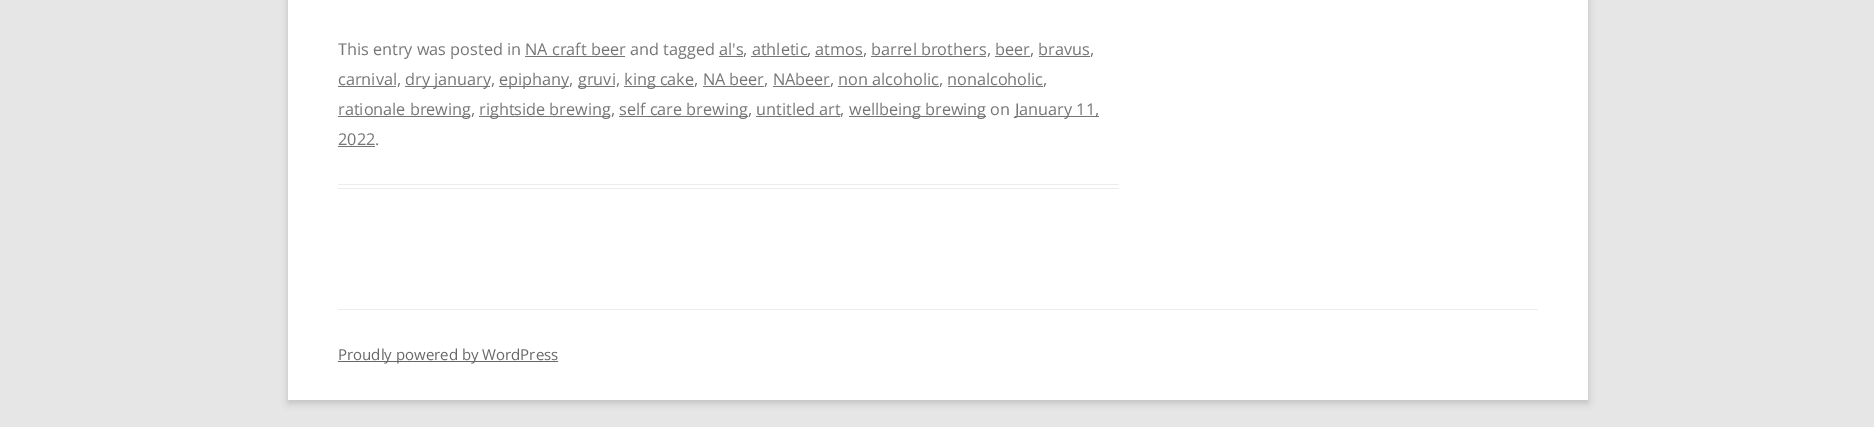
%!PS
<< /PageSize [1874 427] /PageUsesTransparency true >> setpagedevice
/co { dup -16 bitshift 255 div exch dup -8 bitshift 255 and 255 div exch 255 and 255 div setrgbcolor } def
/fn { [ exch dup neg 0 0 3 -1 roll 0 0 ] selectfont } def
/tx { co fn moveto show } def
/bx { co rectfill } def
/al { dup .setfillconstantalpha .setstrokeconstantalpha } def
/rr { 5 dict begin { /r /h /w /y /x } { exch def } forall
  x r add y moveto x w add y 2 copy h add r arct x w add y h add x 1 index r arct
  x y h add x y r arct x y 2 copy exch w add exch r arct closepath end } def
/sh { 12 dict begin { /a /b /q /h /w /y /x } { exch def } forall gsave /was 0 def
  9 -2 -9 { dup b mul 4 div /e exch def 1 sub .425 mul 2.718 exch exp 1 add a .99 .min exch div /now exch def
    1 1 now sub 1 was sub div sub al /was now def
    w h .min e 2 mul add 0 gt { x e sub y e sub w e 2 mul add h e 2 mul add
      q e add b .6 mul add w h .min 2 div e add .min 0 .max rr fill } if } for grestore end } def
0 .pushpdf14devicefilter
0 427 translate 1 -1 scale
4 setmiterlimit
0 0 1874 427 16#E6E6E6 bx
16#646464 co
288 -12 1300 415 0 4 .3 sh
288 0 1300 400 16#FFFFFF bx
338 184 781 1 16#EDEDED bx
338 188 781 1 16#EDEDED bx
525 56 100 1 16#757575 bx
719 56 24 1 16#757575 bx
751 56 57 1 16#757575 bx
815 56 48 1 16#757575 bx
871 56 115 1 16#757575 bx
995 56 35 1 16#757575 bx
1039 56 51 1 16#757575 bx
338 86 58 1 16#757575 bx
405 86 85 1 16#757575 bx
499 86 70 1 16#757575 bx
578 86 37 1 16#757575 bx
624 86 70 1 16#757575 bx
703 86 61 1 16#757575 bx
773 86 57 1 16#757575 bx
838 86 101 1 16#757575 bx
948 86 95 1 16#757575 bx
338 116 132 1 16#757575 bx
479 116 131 1 16#757575 bx
619 116 129 1 16#757575 bx
849 116 137 1 16#757575 bx
1015 116 84 1 16#757575 bx
756 116 84 1 16#757575 bx
338 146 37 1 16#757575 bx
338 309 1200 1 16#EDEDED bx
338 361 220 1 16#686868 bx
(This entry was posted in NA craft beer and tagged al's, athletic) 338 55 /OpenSans-Regular 16.25 16#757575 tx
(, atmos, barrel brothers, beer, bravus,) 807 55 /OpenSans-Regular 16.25 16#757575 tx
(carnival,) 338 85 /OpenSans-Regular 16.25 16#757575 tx
(dry january,) 405 85 /OpenSans-Regular 16.25 16#757575 tx
(epiphany,) 499 85 /OpenSans-Regular 16.25 16#757575 tx
(gruvi,) 578 85 /OpenSans-Regular 16.25 16#757575 tx
(king cake, NA beer, NAbeer, non alcoholic, nonalcoholic,) 624 85 /OpenSans-Regular 16.25 16#757575 tx
(rationale brewing,) 338 115 /OpenSans-Regular 16.25 16#757575 tx
(rightside brewing,) 479 115 /OpenSans-Regular 16.25 16#757575 tx
(self care brewing, untitled art,) 619 115 /OpenSans-Regular 16.25 16#757575 tx
(wellbeing brewing on) 849 115 /OpenSans-Regular 16.25 16#757575 tx
(January 11,) 1015 115 /OpenSans-Regular 16.25 16#757575 tx
(2022.) 338 145 /OpenSans-Regular 16.25 16#757575 tx
(Proudly powered by WordPress) 338 360 /OpenSans-Regular 15 16#686868 tx
.poppdf14devicefilter showpage
